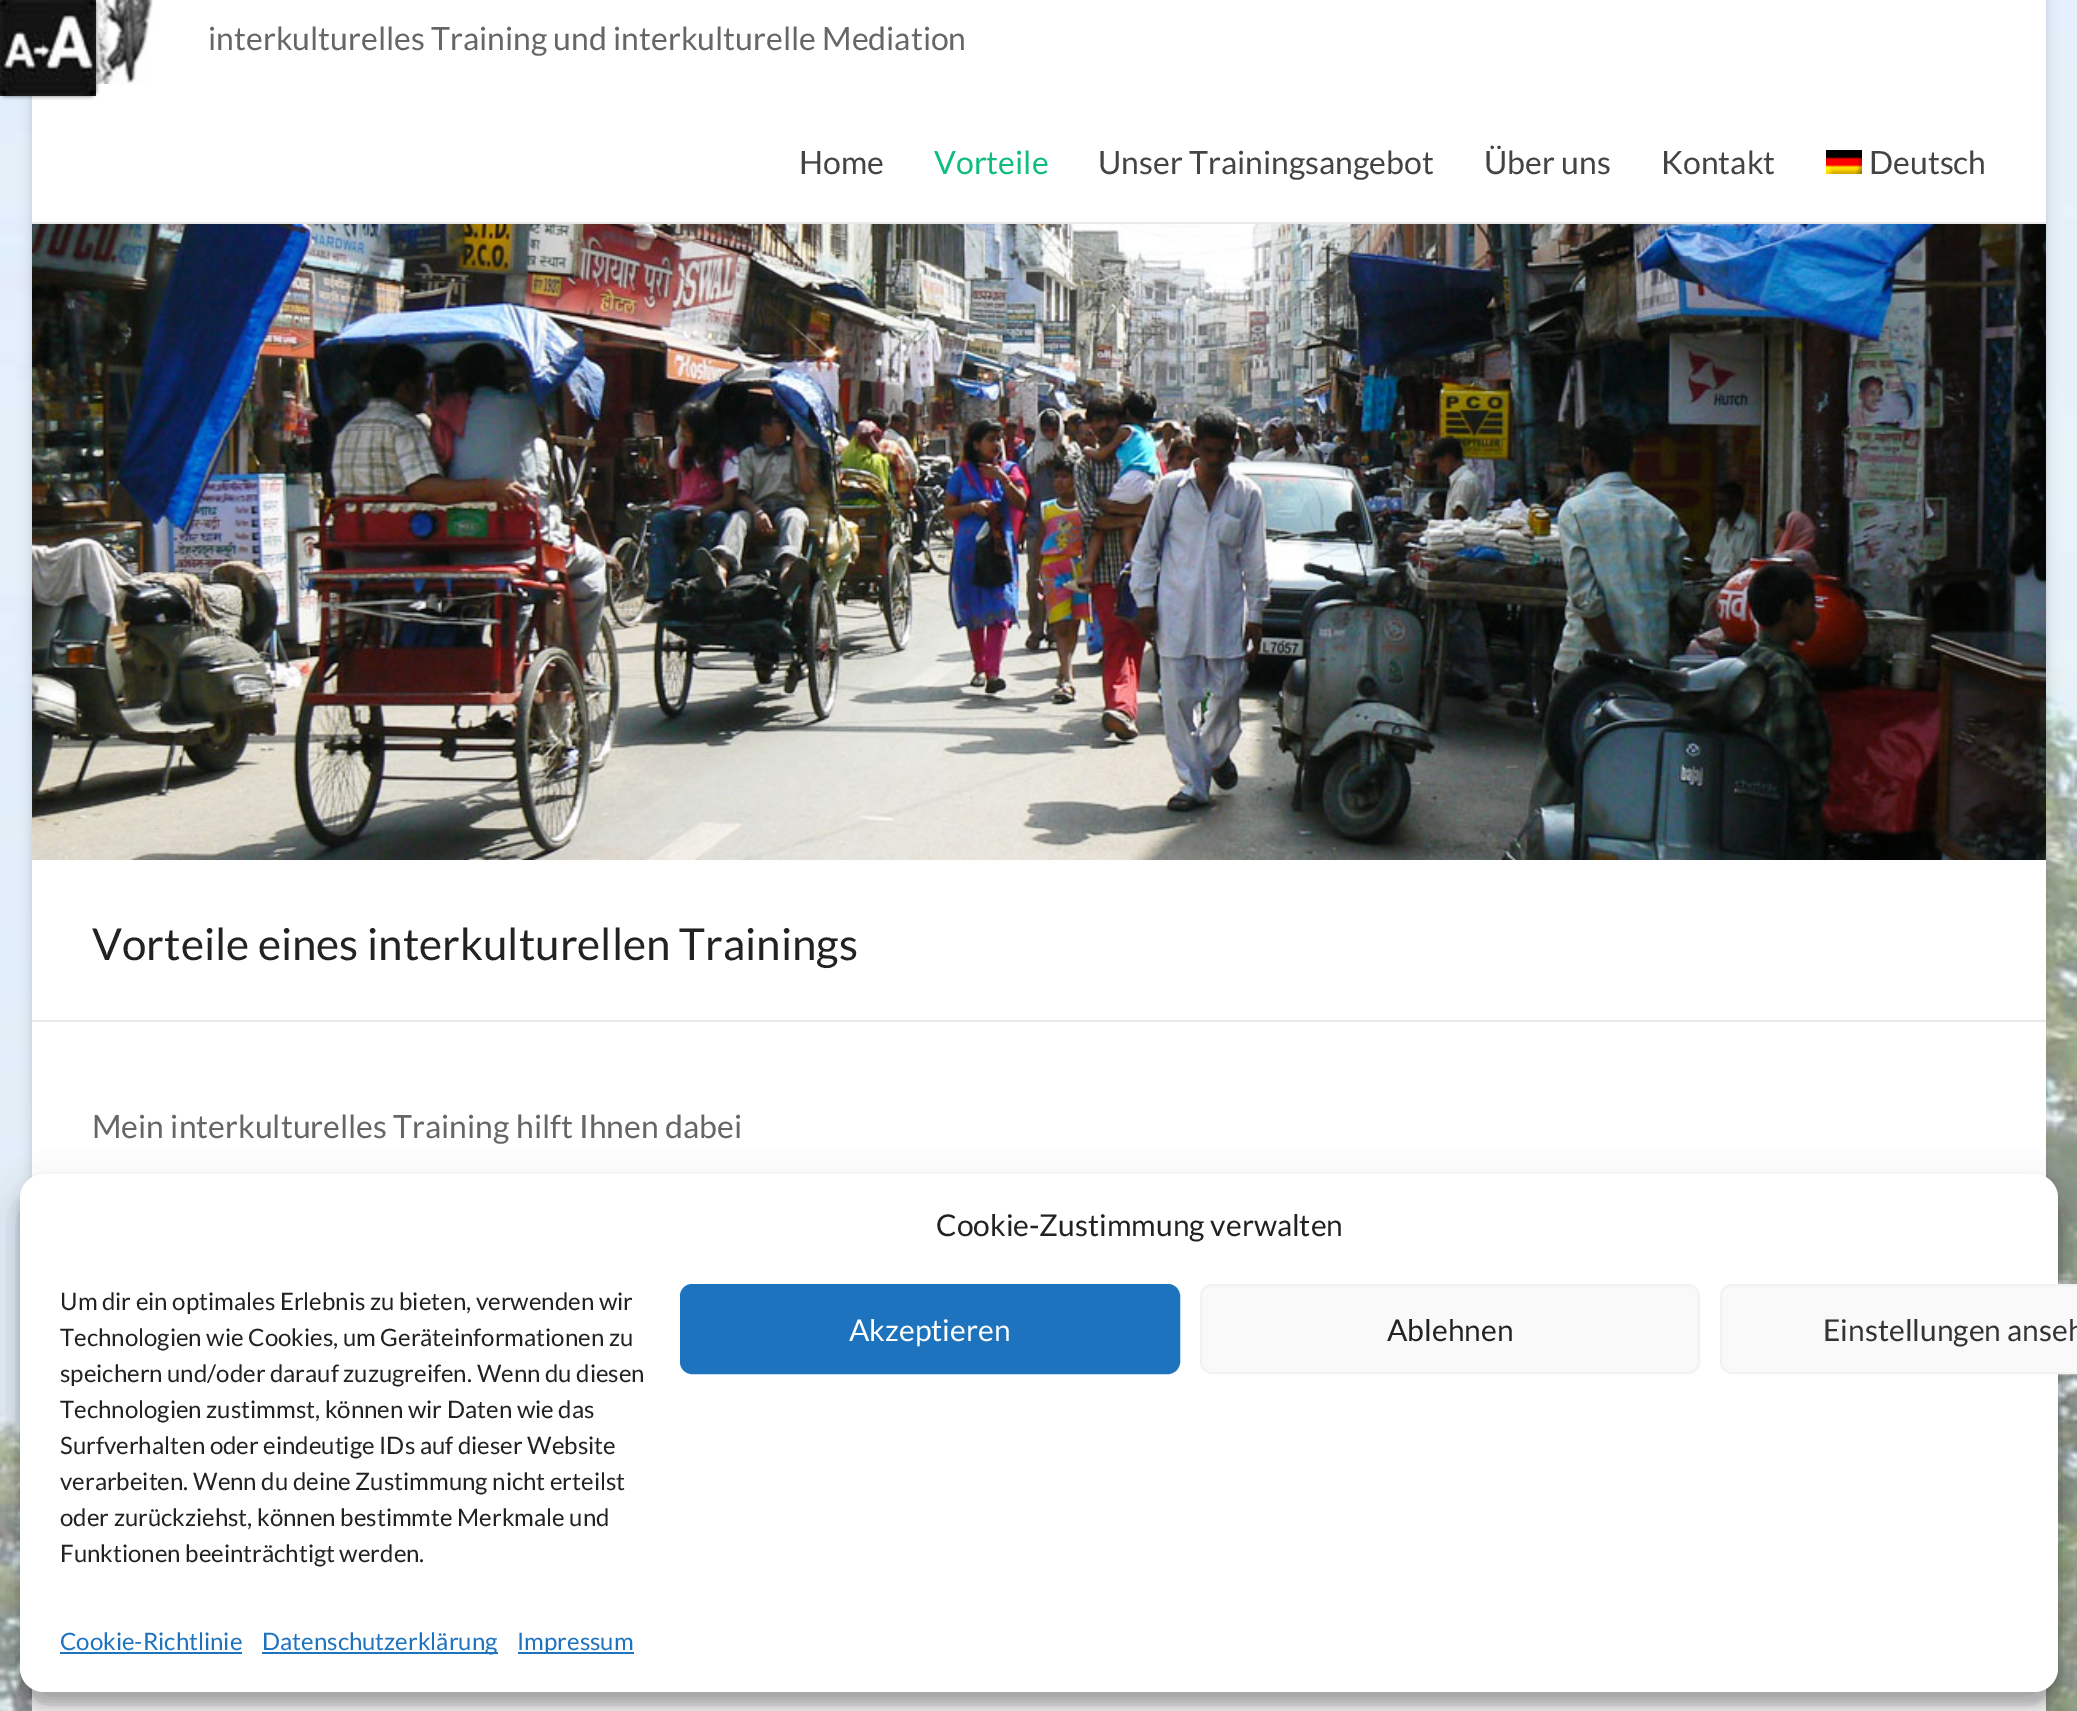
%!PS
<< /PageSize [2077 1711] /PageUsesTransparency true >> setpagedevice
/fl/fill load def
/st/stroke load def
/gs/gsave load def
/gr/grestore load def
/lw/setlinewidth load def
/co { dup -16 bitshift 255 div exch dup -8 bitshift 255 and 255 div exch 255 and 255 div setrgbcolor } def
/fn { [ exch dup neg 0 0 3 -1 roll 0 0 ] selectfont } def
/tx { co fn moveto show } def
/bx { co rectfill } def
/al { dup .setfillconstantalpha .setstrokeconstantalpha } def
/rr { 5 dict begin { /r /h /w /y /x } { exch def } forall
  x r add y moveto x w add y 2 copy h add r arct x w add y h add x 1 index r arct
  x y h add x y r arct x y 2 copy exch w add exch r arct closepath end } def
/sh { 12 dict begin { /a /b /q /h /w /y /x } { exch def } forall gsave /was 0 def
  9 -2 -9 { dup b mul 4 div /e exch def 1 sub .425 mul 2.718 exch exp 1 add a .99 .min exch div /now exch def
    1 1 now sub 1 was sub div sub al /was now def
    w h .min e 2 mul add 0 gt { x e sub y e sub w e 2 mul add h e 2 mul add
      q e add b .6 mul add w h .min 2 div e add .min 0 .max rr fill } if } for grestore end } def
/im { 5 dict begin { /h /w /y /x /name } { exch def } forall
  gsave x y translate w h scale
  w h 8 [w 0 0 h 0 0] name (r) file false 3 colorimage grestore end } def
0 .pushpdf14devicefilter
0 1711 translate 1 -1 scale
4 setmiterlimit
0 0 2077 1711 16#FFFFFF bx
(media/1.raw) 0 0 2077 1711 im
16#646464 co
32 -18 2014 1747 0 6 .3 sh
32 0 2014 1711 16#FFFFFF bx
(media/3.raw) 96 0 57 84 im
16#000000 co
0 0 96 96 6 2 .6 sh
(media/2.raw) 0 0 96 96 im
32 222 2014 2 16#EAEAEA bx
(media/4.raw) 1826 150 36 24 im
(media/5.raw) 32 224 2014 636 im
32 1020 2014 2 16#EAEAEA bx
16#000000 co
20 1186 2038 518 24 6 .23 sh
20 1194 2038 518 24 20 .19 sh
16#FFFFFF co
20 1174 2038 518 24 rr fl
16#1E73BE co
681 1285 498 88 11 rr gs fl gr
2 lw
st
16#F9F9F9 co
1201 1285 498 88 11 rr gs fl gr
16#F2F2F2 co
st
16#F9F9F9 co
1721 1285 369 88 11 rr gs fl gr
16#F2F2F2 co
st
60 1652 182 2 16#1E73BE bx
262 1652 236 2 16#1E73BE bx
518 1652 116 2 16#1E73BE bx
(interkulturelles Training und interkulturelle Mediation) 208 50 /Lato-Regular 32 16#666666 tx
(Home) 799 174 /Lato-Regular 32 16#444444 tx
(Vorteile) 934 174 /Lato-Regular 32 16#0FBE7C tx
(Unser Trainingsangebot) 1098 174 /Lato-Regular 32 16#444444 tx
(Über uns) 1484 174 /Lato-Regular 32 16#444444 tx
(Kontakt) 1661 174 /Lato-Regular 32 16#444444 tx
(Deutsch) 1869 174 /Lato-Regular 32 16#444444 tx
(Vorteile eines interkulturellen Trainings) 92 960 /Lato-Regular 44 16#222222 tx
(Mein interkulturelles Training hilft Ihnen dabei) 92 1138 /Lato-Regular 32 16#666666 tx
(Cookie-Zustimmung verwalten) 936 1236 /Lato-Regular 30 16#222222 tx
(Um dir ein optimales Erlebnis zu bieten, verwenden wir) 60 1310 /Lato-Regular 24 16#222222 tx
(Technologien wie Cookies, um Geräteinformationen zu) 60 1346 /Lato-Regular 24 16#222222 tx
(speichern und/oder darauf zuzugreifen. Wenn du diesen) 60 1382 /Lato-Regular 24 16#222222 tx
(Technologien zustimmst, können wir Daten wie das) 60 1418 /Lato-Regular 24 16#222222 tx
(Surfverhalten oder eindeutige IDs auf dieser Website) 60 1454 /Lato-Regular 24 16#222222 tx
(verarbeiten. Wenn du deine Zustimmung nicht erteilst) 60 1490 /Lato-Regular 24 16#222222 tx
(oder zurückziehst, können bestimmte Merkmale und) 60 1526 /Lato-Regular 24 16#222222 tx
(Funktionen beeinträchtigt werden.) 60 1562 /Lato-Regular 24 16#222222 tx
(Akzeptieren) 849 1341 /Lato-Regular 30 16#FFFFFF tx
(Ablehnen) 1387 1341 /Lato-Regular 30 16#222222 tx
(Einstellungen anseh) 1823 1341 /Lato-Regular 30 16#333333 tx
(Cookie-Richtlinie) 60 1650 /Lato-Regular 24 16#1E73BE tx
(Datenschutzerklärung) 262 1650 /Lato-Regular 24 16#1E73BE tx
(Impressum) 517 1650 /Lato-Regular 24 16#1E73BE tx
.poppdf14devicefilter showpage
